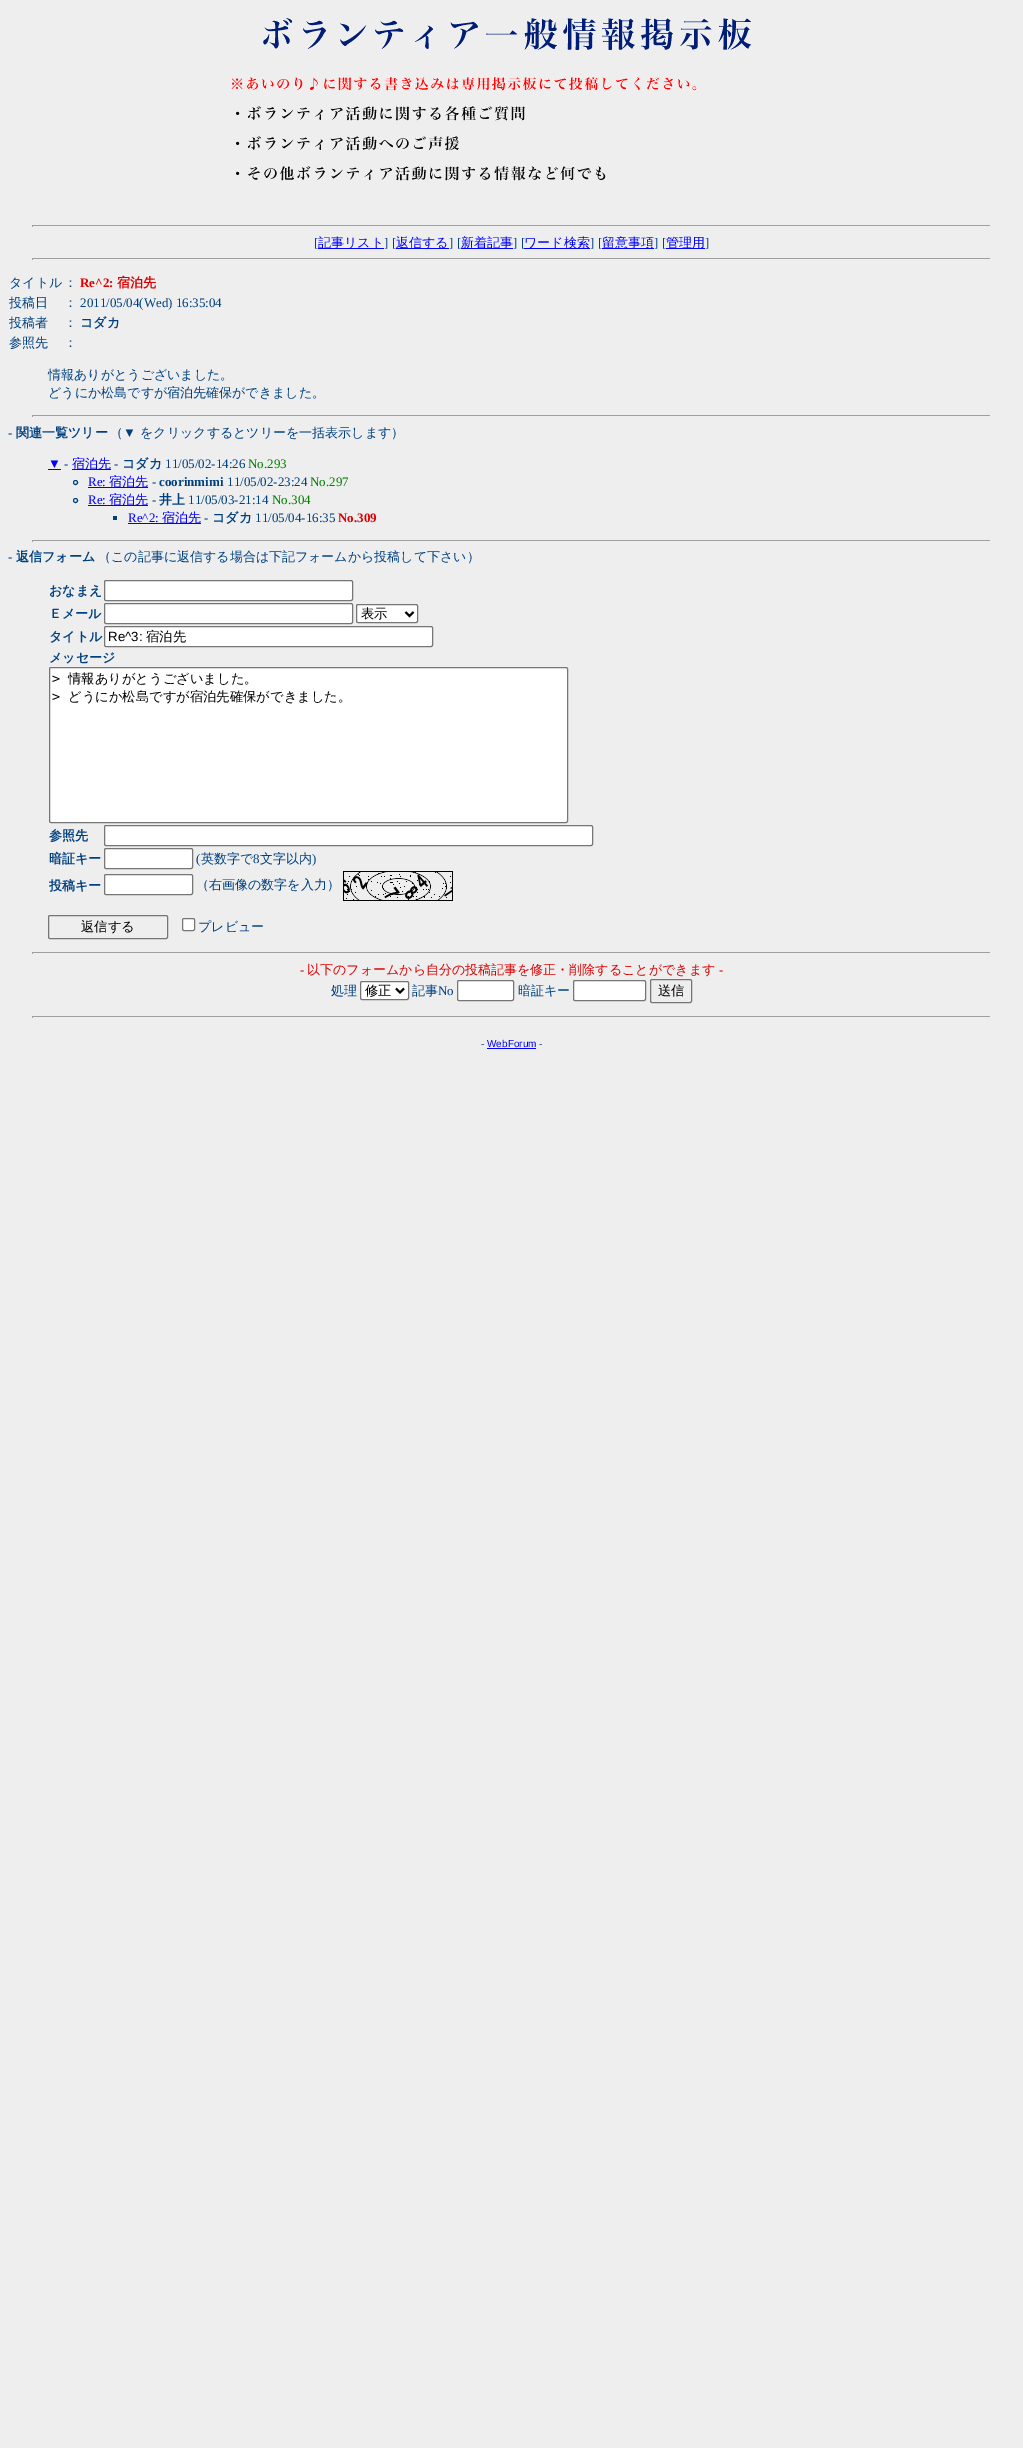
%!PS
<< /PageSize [1023 2448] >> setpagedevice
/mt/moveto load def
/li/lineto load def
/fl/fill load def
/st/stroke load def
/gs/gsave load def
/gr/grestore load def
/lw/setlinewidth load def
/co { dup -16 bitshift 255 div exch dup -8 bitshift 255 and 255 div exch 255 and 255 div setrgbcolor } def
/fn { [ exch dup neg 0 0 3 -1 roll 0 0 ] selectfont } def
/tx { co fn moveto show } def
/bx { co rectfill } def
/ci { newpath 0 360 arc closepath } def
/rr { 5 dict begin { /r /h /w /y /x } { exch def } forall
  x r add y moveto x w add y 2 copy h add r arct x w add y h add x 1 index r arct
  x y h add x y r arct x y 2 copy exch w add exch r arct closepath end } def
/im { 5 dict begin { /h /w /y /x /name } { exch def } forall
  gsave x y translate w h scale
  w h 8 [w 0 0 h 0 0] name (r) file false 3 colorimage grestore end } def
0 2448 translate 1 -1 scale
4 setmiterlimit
0 0 1023 2448 16#EEEEEE bx
(media/1.raw) 231 18 521 163 im
32 225 959 1 16#9F9F9F bx
990 225 1 2 16#EEEEEE bx
32 225 1 2 16#9F9F9F bx
318 248 66 1 16#0000FF bx
396 248 53 1 16#0000FF bx
461 248 52 1 16#0000FF bx
524 248 66 1 16#0000FF bx
602 248 52 1 16#0000FF bx
666 248 39 1 16#0000FF bx
32 258 959 1 16#9F9F9F bx
990 258 1 2 16#EEEEEE bx
32 258 1 2 16#9F9F9F bx
32 415 959 1 16#9F9F9F bx
990 415 1 2 16#EEEEEE bx
32 415 1 2 16#9F9F9F bx
48 469 13 1 16#0000FF bx
72 469 39 1 16#0000FF bx
16#004080 co
75.5 482.5 2 ci st
88 487 60 1 16#0000FF bx
16#004080 co
75.5 500.5 2 ci st
88 505 60 1 16#0000FF bx
113 516 4 4 16#004080 bx
128 523 73 1 16#0000FF bx
32 540 959 1 16#9F9F9F bx
990 540 1 2 16#EEEEEE bx
32 540 1 2 16#9F9F9F bx
16#FFFFFF co
104.5 580.5 248 20 1.5 rr gs fl gr
16#767676 co
st
16#FFFFFF co
104.5 603.5 248 20 1.5 rr gs fl gr
16#767676 co
st
16#FFFFFF co
356.5 604.5 61 18 1.5 rr gs fl gr
16#767676 co
st
16#000000 co
2 lw
405.5 612 mt 409.5 616 li 413.5 612 li st
16#FFFFFF co
104.5 626.5 328 20 1.5 rr gs fl gr
16#767676 co
1 lw
st
16#FFFFFF co
49.5 667.5 518 155 1.5 rr gs fl gr
16#767676 co
st
16#FFFFFF co
104.5 825.5 488 20 1.5 rr gs fl gr
16#767676 co
st
16#FFFFFF co
104.5 848.5 88 20 1.5 rr gs fl gr
16#767676 co
st
16#FFFFFF co
104.5 874.5 88 20 1.5 rr gs fl gr
16#767676 co
st
(media/2.raw) 343 871 110 30 im
48.5 915.5 119 23 1.5 rr st
16#FFFFFF co
182.5 918.5 12 12 1.5 rr gs fl gr
16#767676 co
st
32 952 959 1 16#9F9F9F bx
990 952 1 2 16#EEEEEE bx
32 952 1 2 16#9F9F9F bx
16#FFFFFF co
360.5 981.5 48 18 1.5 rr gs fl gr
16#767676 co
st
16#000000 co
2 lw
396 988.5 mt 400 992.5 li 404 988.5 li st
16#FFFFFF co
457.5 980.5 56 20 1.5 rr gs fl gr
16#767676 co
1 lw
st
16#FFFFFF co
573.5 980.5 72 20 1.5 rr gs fl gr
16#767676 co
st
650.5 979.5 41 23 1.5 rr st
32 1016 959 1 16#9F9F9F bx
990 1016 1 2 16#EEEEEE bx
32 1016 1 2 16#9F9F9F bx
487 1048 49 1 16#0000FF bx
([) 314 247 /LiberationSerif-Regular 13 16#004080 tx
(記事リスト) 318 247 /WenQuanYiZenHei-Medium 13 16#0000FF tx
(] [) 384 247 /LiberationSerif-Regular 13 16#004080 tx
(返信する) 396 247 /WenQuanYiZenHei-Medium 13 16#0000FF tx
(] [) 449 247 /LiberationSerif-Regular 13 16#004080 tx
(新着記事) 461 247 /WenQuanYiZenHei-Medium 13 16#0000FF tx
(] [) 513 247 /LiberationSerif-Regular 13 16#004080 tx
(ワード検索) 524 247 /WenQuanYiZenHei-Medium 13 16#0000FF tx
(] [) 590 247 /LiberationSerif-Regular 13 16#004080 tx
(留意事項) 602 247 /WenQuanYiZenHei-Medium 13 16#0000FF tx
(] [) 654 247 /LiberationSerif-Regular 13 16#004080 tx
(管理用) 666 247 /WenQuanYiZenHei-Medium 13 16#0000FF tx
(]) 705 247 /LiberationSerif-Regular 13 16#004080 tx
(タイトル) 9 287 /WenQuanYiZenHei-Medium 13 16#004080 tx
(：) 64 287 /WenQuanYiZenHei-Medium 13 16#004080 tx
(Re^2:) 80 287 /LiberationSerif-Bold 13 16#DD0000 tx
(宿泊先) 117 287 /WenQuanYiZenHei-Bold 13 16#DD0000 tx
(投稿日) 9 307 /WenQuanYiZenHei-Medium 13 16#004080 tx
(：) 64 307 /WenQuanYiZenHei-Medium 13 16#004080 tx
(2011/05/04\(Wed\) 16:35:04) 80 307 /LiberationSerif-Regular 13 16#004080 tx
(投稿者) 9 327 /WenQuanYiZenHei-Medium 13 16#004080 tx
(：) 64 327 /WenQuanYiZenHei-Medium 13 16#004080 tx
(コダカ) 80 327 /WenQuanYiZenHei-Bold 13 16#004080 tx
(参照先) 9 347 /WenQuanYiZenHei-Medium 13 16#004080 tx
(：) 64 347 /WenQuanYiZenHei-Medium 13 16#004080 tx
(情報ありがとうございました。) 48 379 /WenQuanYiZenHei-Medium 13 16#004080 tx
(どうにか松島ですが宿泊先確保ができました。) 48 397 /WenQuanYiZenHei-Medium 13 16#004080 tx
(-) 8 437 /LiberationSerif-Bold 13 16#004080 tx
(関連一覧ツリー) 16 437 /WenQuanYiZenHei-Bold 13 16#004080 tx
(（) 110 437 /WenQuanYiZenHei-Medium 13 16#004080 tx
(▼) 123 437 /LiberationSerif-Regular 13 16#004080 tx
(をクリックするとツリーを一括表示します）) 140 437 /WenQuanYiZenHei-Medium 13 16#004080 tx
(▼) 48 468 /LiberationSerif-Regular 13 16#0000FF tx
(-) 64 468 /LiberationSerif-Regular 13 16#004080 tx
(宿泊先) 72 468 /WenQuanYiZenHei-Medium 13 16#0000FF tx
(-) 114 468 /LiberationSerif-Regular 13 16#004080 tx
(コダカ) 122 468 /WenQuanYiZenHei-Bold 13 16#004080 tx
(11/05/02-14:26) 165 468 /LiberationSerif-Regular 13 16#004080 tx
(No.293) 248 468 /LiberationSerif-Regular 13 16#008000 tx
(Re:) 88 486 /LiberationSerif-Regular 13 16#0000FF tx
(宿泊先) 109 486 /WenQuanYiZenHei-Medium 13 16#0000FF tx
(-) 152 486 /LiberationSerif-Regular 13 16#004080 tx
(coorinmimi) 159 486 /LiberationSerif-Bold 13 16#004080 tx
(11/05/02-23:24) 227 486 /LiberationSerif-Regular 13 16#004080 tx
(No.297) 310 486 /LiberationSerif-Regular 13 16#008000 tx
(Re:) 88 504 /LiberationSerif-Regular 13 16#0000FF tx
(宿泊先) 109 504 /WenQuanYiZenHei-Medium 13 16#0000FF tx
(-) 152 504 /LiberationSerif-Regular 13 16#004080 tx
(井上) 159 504 /WenQuanYiZenHei-Bold 13 16#004080 tx
(11/05/03-21:14) 188 504 /LiberationSerif-Regular 13 16#004080 tx
(No.304) 272 504 /LiberationSerif-Regular 13 16#008000 tx
(Re^2:) 128 522 /LiberationSerif-Regular 13 16#0000FF tx
(宿泊先) 162 522 /WenQuanYiZenHei-Medium 13 16#0000FF tx
(-) 204 522 /LiberationSerif-Regular 13 16#004080 tx
(コダカ) 212 522 /WenQuanYiZenHei-Bold 13 16#004080 tx
(11/05/04-16:35) 255 522 /LiberationSerif-Regular 13 16#004080 tx
(No.309) 338 522 /LiberationSerif-Bold 13 16#DD0000 tx
(-) 8 561 /LiberationSerif-Bold 13 16#004080 tx
(返信フォーム) 16 561 /WenQuanYiZenHei-Bold 13 16#004080 tx
(（この記事に返信する場合は下記フォームから投稿して下さい）) 98 561 /WenQuanYiZenHei-Medium 13 16#004080 tx
(おなまえ) 49 595 /WenQuanYiZenHei-Bold 13 16#004080 tx
(Ｅメール) 49 618 /WenQuanYiZenHei-Bold 13 16#004080 tx
(表示) 361 618 /WenQuanYiZenHei-Medium 13.3 16#000000 tx
(タイトル) 49 641 /WenQuanYiZenHei-Bold 13 16#004080 tx
(Re^3:) 108 641 /LiberationSans-Regular 13.3 16#000000 tx
(宿泊先) 146 641 /WenQuanYiZenHei-Medium 13.3 16#000000 tx
(メッセージ) 49 662 /WenQuanYiZenHei-Bold 13 16#004080 tx
(>) 52 683 /DejaVuSansMono-Regular 13.3 16#000000 tx
(情報ありがとうございました。) 68 683 /WenQuanYiZenHei-Medium 13.3 16#000000 tx
(>) 52 701 /DejaVuSansMono-Regular 13.3 16#000000 tx
(どうにか松島ですが宿泊先確保ができました。) 68 701 /WenQuanYiZenHei-Medium 13.3 16#000000 tx
(参照先) 49 840 /WenQuanYiZenHei-Bold 13 16#004080 tx
(暗証キー) 49 863 /WenQuanYiZenHei-Bold 13 16#004080 tx
(\() 196 863 /LiberationSerif-Regular 13 16#004080 tx
(英数字で) 201 863 /WenQuanYiZenHei-Medium 13 16#004080 tx
(8) 253 863 /LiberationSerif-Regular 13 16#004080 tx
(文字以内) 260 863 /WenQuanYiZenHei-Medium 13 16#004080 tx
(\)) 312 863 /LiberationSerif-Regular 13 16#004080 tx
(投稿キー) 49 890 /WenQuanYiZenHei-Bold 13 16#004080 tx
(（右画像の数字を入力）) 196 889 /WenQuanYiZenHei-Medium 13 16#004080 tx
(返信する) 81 931 /WenQuanYiZenHei-Medium 13.3 16#000000 tx
(プレビュー) 198 931 /WenQuanYiZenHei-Medium 13 16#004080 tx
(-) 300 974 /LiberationSerif-Regular 13 16#DD0000 tx
(以下のフォームから自分の投稿記事を修正・削除することができます) 307 974 /WenQuanYiZenHei-Medium 13 16#DD0000 tx
(-) 719 974 /LiberationSerif-Regular 13 16#DD0000 tx
(処理) 331 995 /WenQuanYiZenHei-Medium 13 16#004080 tx
(修正) 365 995 /WenQuanYiZenHei-Medium 13.3 16#000000 tx
(記事) 412 995 /WenQuanYiZenHei-Medium 13 16#004080 tx
(No) 438 995 /LiberationSerif-Regular 13 16#004080 tx
(暗証キー) 518 995 /WenQuanYiZenHei-Medium 13 16#004080 tx
(送信) 658 995 /WenQuanYiZenHei-Medium 13.3 16#000000 tx
(-) 481 1047 /LiberationSans-Regular 10 16#004080 tx
(WebForum) 487 1047 /LiberationSans-Regular 10 16#0000FF tx
(-) 539 1047 /LiberationSans-Regular 10 16#004080 tx
showpage
